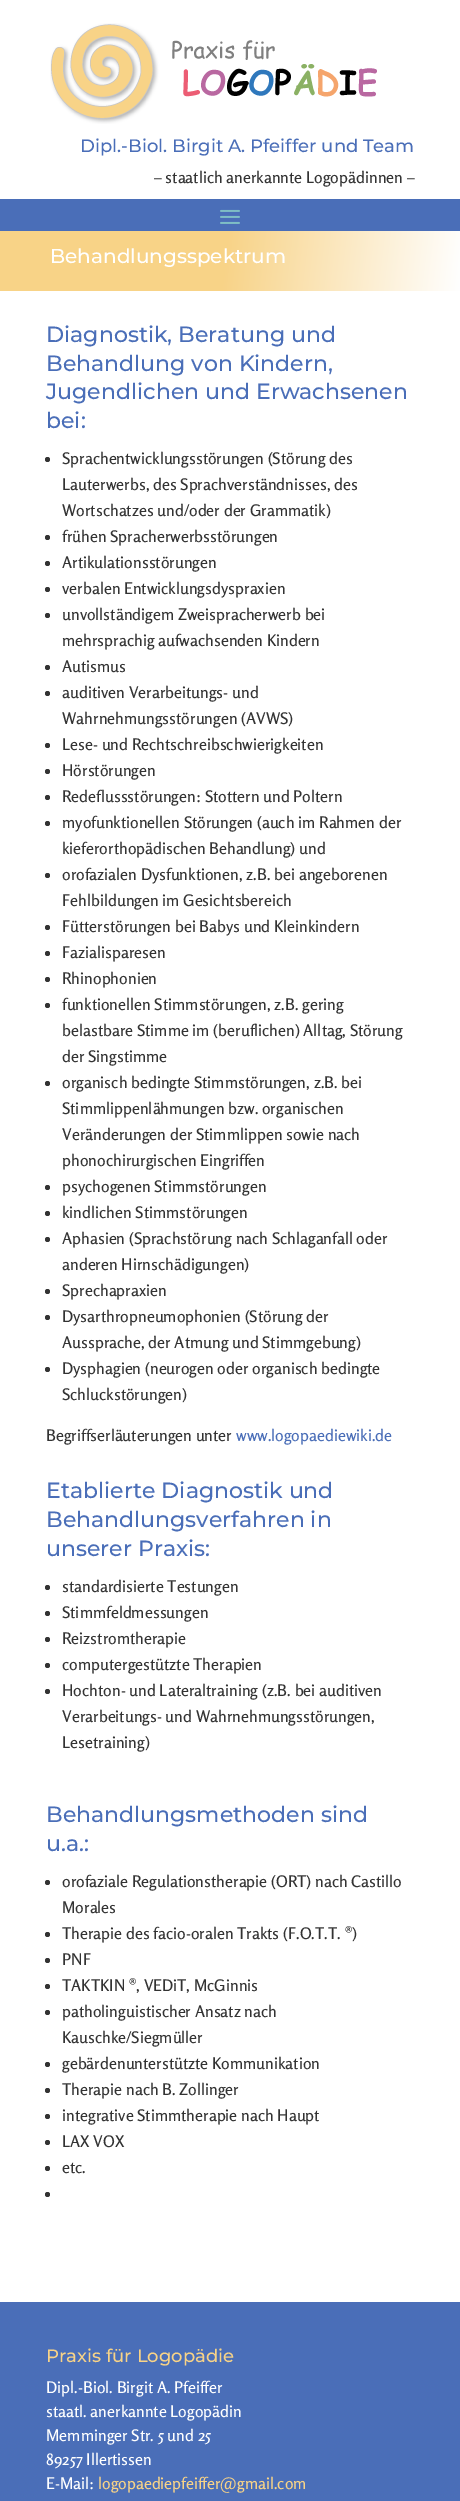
%!PS
<< /PageSize [460 2501] >> setpagedevice
/mt/moveto load def
/li/lineto load def
/cp/closepath load def
/fl/fill load def
/gs/gsave load def
/gr/grestore load def
/co { dup -16 bitshift 255 div exch dup -8 bitshift 255 and 255 div exch 255 and 255 div setrgbcolor } def
/fn { [ exch dup neg 0 0 3 -1 roll 0 0 ] selectfont } def
/tx { co fn moveto show } def
/bx { co rectfill } def
/ci { newpath 0 360 arc closepath } def
/im { 5 dict begin { /h /w /y /x /name } { exch def } forall
  gsave x y translate w h scale
  w h 8 [w 0 0 h 0 0] name (r) file false 3 colorimage grestore end } def
0 2501 translate 1 -1 scale
4 setmiterlimit
0 0 460 2501 16#FFFFFF bx
(media/1.raw) 50 23 327 101 im
0 199 460 32 16#4A6EB8 bx
(media/2.raw) 220 209 20 15 im
gs 0 231 mt 460 231 li 460 291 li 0 291 li cp clip newpath
<< /ShadingType 2 /ColorSpace /DeviceRGB /Coords [-.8 228 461 284] /Extend [true true] /Function << /FunctionType 3 /Domain [0 1] /Functions [<< /FunctionType 2 /Domain [0 1] /C0 [.973 .827 .529] /C1 [.973 .827 .529] /N 1 >> << /FunctionType 2 /Domain [0 1] /C0 [.973 .827 .529] /C1 [1 1 1] /N 1 >>] /Bounds [.49] /Encode [0 1 0 1] >> >> shfill gr
16#333333 co
47.5 459.5 2.5 ci fl
47.5 537.5 2.5 ci fl
47.5 563.5 2.5 ci fl
47.5 589.5 2.5 ci fl
47.5 615.5 2.5 ci fl
47.5 667.5 2.5 ci fl
47.5 693.5 2.5 ci fl
47.5 745.5 2.5 ci fl
47.5 771.5 2.5 ci fl
47.5 797.5 2.5 ci fl
47.5 823.5 2.5 ci fl
47.5 875.5 2.5 ci fl
47.5 927.5 2.5 ci fl
47.5 953.5 2.5 ci fl
47.5 979.5 2.5 ci fl
47.5 1005.5 2.5 ci fl
47.5 1083.5 2.5 ci fl
47.5 1187.5 2.5 ci fl
47.5 1213.5 2.5 ci fl
47.5 1239.5 2.5 ci fl
47.5 1291.5 2.5 ci fl
47.5 1317.5 2.5 ci fl
47.5 1369.5 2.5 ci fl
47.5 1587.5 2.5 ci fl
47.5 1613.5 2.5 ci fl
47.5 1639.5 2.5 ci fl
47.5 1665.5 2.5 ci fl
47.5 1691.5 2.5 ci fl
47.5 1882.5 2.5 ci fl
47.5 1934.5 2.5 ci fl
47.5 1960.5 2.5 ci fl
47.5 1986.5 2.5 ci fl
47.5 2012.5 2.5 ci fl
47.5 2064.5 2.5 ci fl
47.5 2090.5 2.5 ci fl
47.5 2116.5 2.5 ci fl
47.5 2142.5 2.5 ci fl
47.5 2168.5 2.5 ci fl
47.5 2194.5 2.5 ci fl
0 2302 460 199 16#4A6EB8 bx
(Dipl.-Biol. Birgit A. Pfeiffer und Team) 80 152 /Montserrat-Thin 18 16#4A6EB8 tx
(– staatlich anerkannte Logopädinnen –) 154 183 /Rosario-Medium 16 16#333333 tx
(Behandlungsspektrum) 50 263 /Montserrat-Thin 20 16#FFFFFF tx
(Diagnostik, Beratung und) 46 342 /Montserrat-Thin 22 16#4A6EB8 tx
(Behandlung von Kindern,) 46 371 /Montserrat-Thin 22 16#4A6EB8 tx
(Jugendlichen und Erwachsenen) 46 399 /Montserrat-Thin 22 16#4A6EB8 tx
(bei:) 46 428 /Montserrat-Thin 22 16#4A6EB8 tx
(Sprachentwicklungsstörungen \(Störung des) 62 464 /Rosario-Medium 16 16#333333 tx
(Lauterwerbs, des Sprachverständnisses, des) 62 490 /Rosario-Medium 16 16#333333 tx
(Wortschatzes und/oder der Grammatik\)) 62 516 /Rosario-Medium 16 16#333333 tx
(frühen Spracherwerbsstörungen) 62 542 /Rosario-Medium 16 16#333333 tx
(Artikulationsstörungen) 62 568 /Rosario-Medium 16 16#333333 tx
(verbalen Entwicklungsdyspraxien) 62 594 /Rosario-Medium 16 16#333333 tx
(unvollständigem Zweispracherwerb bei) 62 620 /Rosario-Medium 16 16#333333 tx
(mehrsprachig aufwachsenden Kindern) 62 646 /Rosario-Medium 16 16#333333 tx
(Autismus) 62 672 /Rosario-Medium 16 16#333333 tx
(auditiven Verarbeitungs- und) 62 698 /Rosario-Medium 16 16#333333 tx
(Wahrnehmungsstörungen \(AVWS\)) 62 724 /Rosario-Medium 16 16#333333 tx
(Lese- und Rechtschreibschwierigkeiten) 62 750 /Rosario-Medium 16 16#333333 tx
(Hörstörungen) 62 776 /Rosario-Medium 16 16#333333 tx
(Redeflussstörungen: Stottern und Poltern) 62 802 /Rosario-Medium 16 16#333333 tx
(myofunktionellen Störungen \(auch im Rahmen der) 62 828 /Rosario-Medium 16 16#333333 tx
(kieferorthopädischen Behandlung\) und) 62 854 /Rosario-Medium 16 16#333333 tx
(orofazialen Dysfunktionen, z.B. bei angeborenen) 62 880 /Rosario-Medium 16 16#333333 tx
(Fehlbildungen im Gesichtsbereich) 62 906 /Rosario-Medium 16 16#333333 tx
(Fütterstörungen bei Babys und Kleinkindern) 62 932 /Rosario-Medium 16 16#333333 tx
(Fazialisparesen) 62 958 /Rosario-Medium 16 16#333333 tx
(Rhinophonien) 62 984 /Rosario-Medium 16 16#333333 tx
(funktionellen Stimmstörungen, z.B. gering) 62 1010 /Rosario-Medium 16 16#333333 tx
(belastbare Stimme im \(beruflichen\) Alltag, Störung) 62 1036 /Rosario-Medium 16 16#333333 tx
(der Singstimme) 62 1062 /Rosario-Medium 16 16#333333 tx
(organisch bedingte Stimmstörungen, z.B. bei) 62 1088 /Rosario-Medium 16 16#333333 tx
(Stimmlippenlähmungen bzw. organischen) 62 1114 /Rosario-Medium 16 16#333333 tx
(Veränderungen der Stimmlippen sowie nach) 62 1140 /Rosario-Medium 16 16#333333 tx
(phonochirurgischen Eingriffen) 62 1166 /Rosario-Medium 16 16#333333 tx
(psychogenen Stimmstörungen) 62 1192 /Rosario-Medium 16 16#333333 tx
(kindlichen Stimmstörungen) 62 1218 /Rosario-Medium 16 16#333333 tx
(Aphasien \(Sprachstörung nach Schlaganfall oder) 62 1244 /Rosario-Medium 16 16#333333 tx
(anderen Hirnschädigungen\)) 62 1270 /Rosario-Medium 16 16#333333 tx
(Sprechapraxien) 62 1296 /Rosario-Medium 16 16#333333 tx
(Dysarthropneumophonien \(Störung der) 62 1322 /Rosario-Medium 16 16#333333 tx
(Aussprache, der Atmung und Stimmgebung\)) 62 1348 /Rosario-Medium 16 16#333333 tx
(Dysphagien \(neurogen oder organisch bedingte) 62 1374 /Rosario-Medium 16 16#333333 tx
(Schluckstörungen\)) 62 1400 /Rosario-Medium 16 16#333333 tx
(Begriffserläuterungen unter) 46 1441 /Rosario-Medium 16 16#333333 tx
(www.logopaediewiki.de) 236 1441 /Rosario-Medium 16 16#4A6EB8 tx
(Etablierte Diagnostik und) 46 1498 /Montserrat-Thin 22 16#4A6EB8 tx
(Behandlungsverfahren in) 46 1527 /Montserrat-Thin 22 16#4A6EB8 tx
(unserer Praxis:) 46 1556 /Montserrat-Thin 22 16#4A6EB8 tx
(standardisierte Testungen) 62 1592 /Rosario-Medium 16 16#333333 tx
(Stimmfeldmessungen) 62 1618 /Rosario-Medium 16 16#333333 tx
(Reizstromtherapie) 62 1644 /Rosario-Medium 16 16#333333 tx
(computergestützte Therapien) 62 1670 /Rosario-Medium 16 16#333333 tx
(Hochton- und Lateraltraining \(z.B. bei auditiven) 62 1696 /Rosario-Medium 16 16#333333 tx
(Verarbeitungs- und Wahrnehmungsstörungen,) 62 1722 /Rosario-Medium 16 16#333333 tx
(Lesetraining\)) 62 1748 /Rosario-Medium 16 16#333333 tx
(Behandlungsmethoden sind) 46 1822 /Montserrat-Thin 22 16#4A6EB8 tx
(u.a.:) 46 1851 /Montserrat-Thin 22 16#4A6EB8 tx
(orofaziale Regulationstherapie \(ORT\) nach Castillo) 62 1887 /Rosario-Medium 16 16#333333 tx
(Morales) 62 1913 /Rosario-Medium 16 16#333333 tx
(Therapie des facio-oralen Trakts \(F.O.T.T. ®\)) 62 1939 /Rosario-Medium 16 16#333333 tx
(PNF) 62 1965 /Rosario-Medium 16 16#333333 tx
(TAKTKIN ®, VEDiT, McGinnis) 62 1991 /Rosario-Medium 16 16#333333 tx
(patholinguistischer Ansatz nach) 62 2017 /Rosario-Medium 16 16#333333 tx
(Kauschke/Siegmüller) 62 2043 /Rosario-Medium 16 16#333333 tx
(gebärdenunterstützte Kommunikation) 62 2069 /Rosario-Medium 16 16#333333 tx
(Therapie nach B. Zollinger) 62 2095 /Rosario-Medium 16 16#333333 tx
(integrative Stimmtherapie nach Haupt) 62 2121 /Rosario-Medium 16 16#333333 tx
(LAX VOX) 62 2147 /Rosario-Medium 16 16#333333 tx
(etc.) 62 2173 /Rosario-Medium 16 16#333333 tx
(Praxis für Logopädie) 46 2362 /Montserrat-Thin 18 16#F8D387 tx
(Dipl.-Biol. Birgit A. Pfeiffer) 46 2393 /Rosario-Medium 16 16#FFFFFF tx
(staatl. anerkannte Logopädin) 46 2417 /Rosario-Medium 16 16#FFFFFF tx
(Memminger Str. 5 und 25) 46 2441 /Rosario-Medium 16 16#FFFFFF tx
(89257 Illertissen) 46 2465 /Rosario-Medium 16 16#FFFFFF tx
(E-Mail:) 46 2489 /Rosario-Medium 16 16#FFFFFF tx
(logopaediepfeiffer@gmail.com) 98 2489 /Rosario-Medium 16 16#F8D387 tx
showpage
